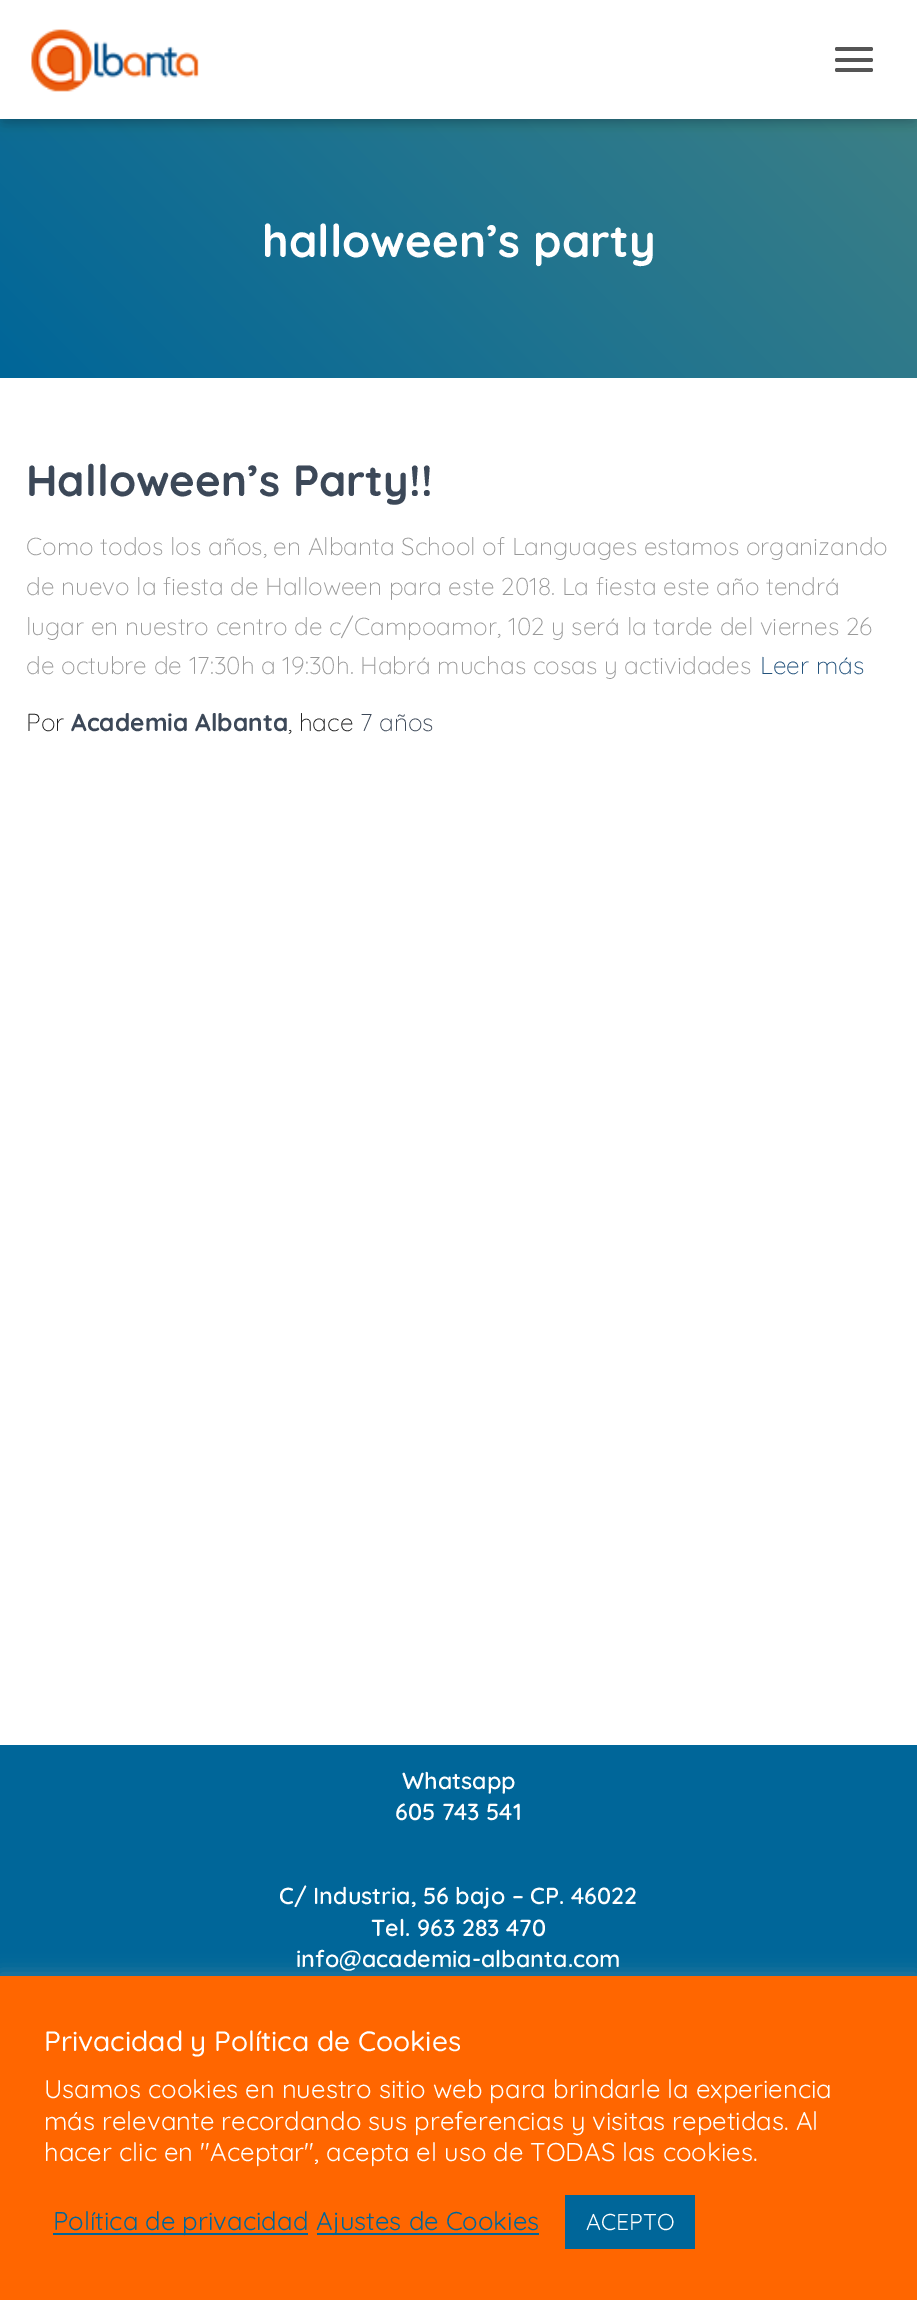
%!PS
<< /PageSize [917 2300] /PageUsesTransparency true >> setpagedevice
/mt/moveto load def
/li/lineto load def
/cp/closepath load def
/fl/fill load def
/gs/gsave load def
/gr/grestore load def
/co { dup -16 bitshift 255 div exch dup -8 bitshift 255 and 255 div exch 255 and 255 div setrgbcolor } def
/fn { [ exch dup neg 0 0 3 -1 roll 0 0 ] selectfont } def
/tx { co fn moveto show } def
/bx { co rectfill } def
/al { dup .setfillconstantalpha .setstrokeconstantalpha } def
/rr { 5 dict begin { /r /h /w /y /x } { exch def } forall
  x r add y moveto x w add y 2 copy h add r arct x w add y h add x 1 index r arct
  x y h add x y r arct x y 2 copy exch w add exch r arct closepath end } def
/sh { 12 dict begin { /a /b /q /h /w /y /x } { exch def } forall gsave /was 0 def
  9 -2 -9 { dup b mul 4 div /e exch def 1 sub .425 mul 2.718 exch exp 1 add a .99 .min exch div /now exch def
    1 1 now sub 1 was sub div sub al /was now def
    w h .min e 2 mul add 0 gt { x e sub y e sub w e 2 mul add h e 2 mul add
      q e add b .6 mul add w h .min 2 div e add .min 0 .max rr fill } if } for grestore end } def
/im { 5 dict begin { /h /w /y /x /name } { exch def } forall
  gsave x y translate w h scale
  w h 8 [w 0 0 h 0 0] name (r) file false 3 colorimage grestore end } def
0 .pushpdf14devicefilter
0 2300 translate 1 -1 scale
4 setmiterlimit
0 0 917 2300 16#FFFFFF bx
gs 0 119 mt 917 119 li 917 378 li 0 378 li cp clip newpath
<< /ShadingType 2 /ColorSpace /DeviceRGB /Coords [135 513 782 -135] /Extend [true true] /Function << /FunctionType 2 /Domain [0 1] /C0 [0 .4 .6] /C1 [.259 .51 .518] /N 1 >> >> shfill gr
16#000000 co
4 11 910 112 0 4.5 .1 sh
0 2 917 119 0 9 .12 sh
11 12 896 98 0 9 .42 sh
0 0 917 119 16#FFFFFF bx
(media/1.raw) 31 29 168 63 im
16#555555 co
835 47 38 4 2 rr fl
835 58 38 4 2 rr fl
835 68 38 4 2 rr fl
0 1745 917 231 16#006699 bx
16#ACABAB co
0 1974 917 326 0 9 .3 sh
0 1976 917 324 16#FF6600 bx
53 2233 255 2 16#006699 bx
317 2233 222 2 16#006699 bx
565 2195 130 54 16#006699 bx
(halloween’s party) 262 257 /Quicksand-Bold 45.5 16#FFFFFF tx
(Halloween’s Party!!) 26 496 /Quicksand-Bold 43.75 16#3C4858 tx
(Como todos los años, en Albanta School of Languages estamos organizando) 26 555 /Quicksand-Light 24.5 16#999999 tx
(de nuevo la fiesta de Halloween para este 2018. La fiesta este año tendrá) 26 595 /Quicksand-Light 24.5 16#999999 tx
(lugar en nuestro centro de c/Campoamor, 102 y será la tarde del viernes 26) 26 635 /Quicksand-Light 24.5 16#999999 tx
(de octubre de 17:30h a 19:30h. Habrá muchas cosas y actividades) 26 674 /Quicksand-Light 24.5 16#999999 tx
(Leer más) 760 674 /Quicksand-Light 24.5 16#23527C tx
(Por) 26 731 /Quicksand-Light 24.5 16#212121 tx
(Academia Albanta) 71 731 /Quicksand-Bold 24.5 16#3C4858 tx
(, hace) 288 731 /Quicksand-Light 24.5 16#212121 tx
(7 años) 360 731 /Quicksand-Light 24.5 16#3C4858 tx
(Whatsapp) 402 1789 /Quicksand-SemiBold 23.3 16#FFFFFF tx
(605 743 541) 395 1820 /Quicksand-SemiBold 23.3 16#FFFFFF tx
(C/ Industria, 56 bajo – CP. 46022) 279 1904 /Quicksand-SemiBold 23.3 16#FFFFFF tx
(Tel. 963 283 470) 371 1936 /Quicksand-SemiBold 23.3 16#FFFFFF tx
(info@academia-albanta.com) 296 1967 /Quicksand-SemiBold 23.3 16#FFFFFF tx
(Privacidad y Política de Cookies) 44 2051 /Quicksand-Medium 28 16#FFFFFF tx
(Usamos cookies en nuestro sitio web para brindarle la experiencia) 44 2098 /Quicksand-Regular 25.7 16#FFFFFF tx
(más relevante recordando sus preferencias y visitas repetidas. Al) 44 2130 /Quicksand-Regular 25.7 16#FFFFFF tx
(hacer clic en "Aceptar", acepta el uso de TODAS las cookies.) 44 2161 /Quicksand-Regular 25.7 16#FFFFFF tx
(Política de privacidad) 53 2230 /Quicksand-Regular 25.7 16#006699 tx
(Ajustes de Cookies) 316 2230 /Quicksand-Regular 25.7 16#006699 tx
(ACEPTO) 586 2230 /Quicksand-Regular 23 16#FFFFFF tx
.poppdf14devicefilter showpage
